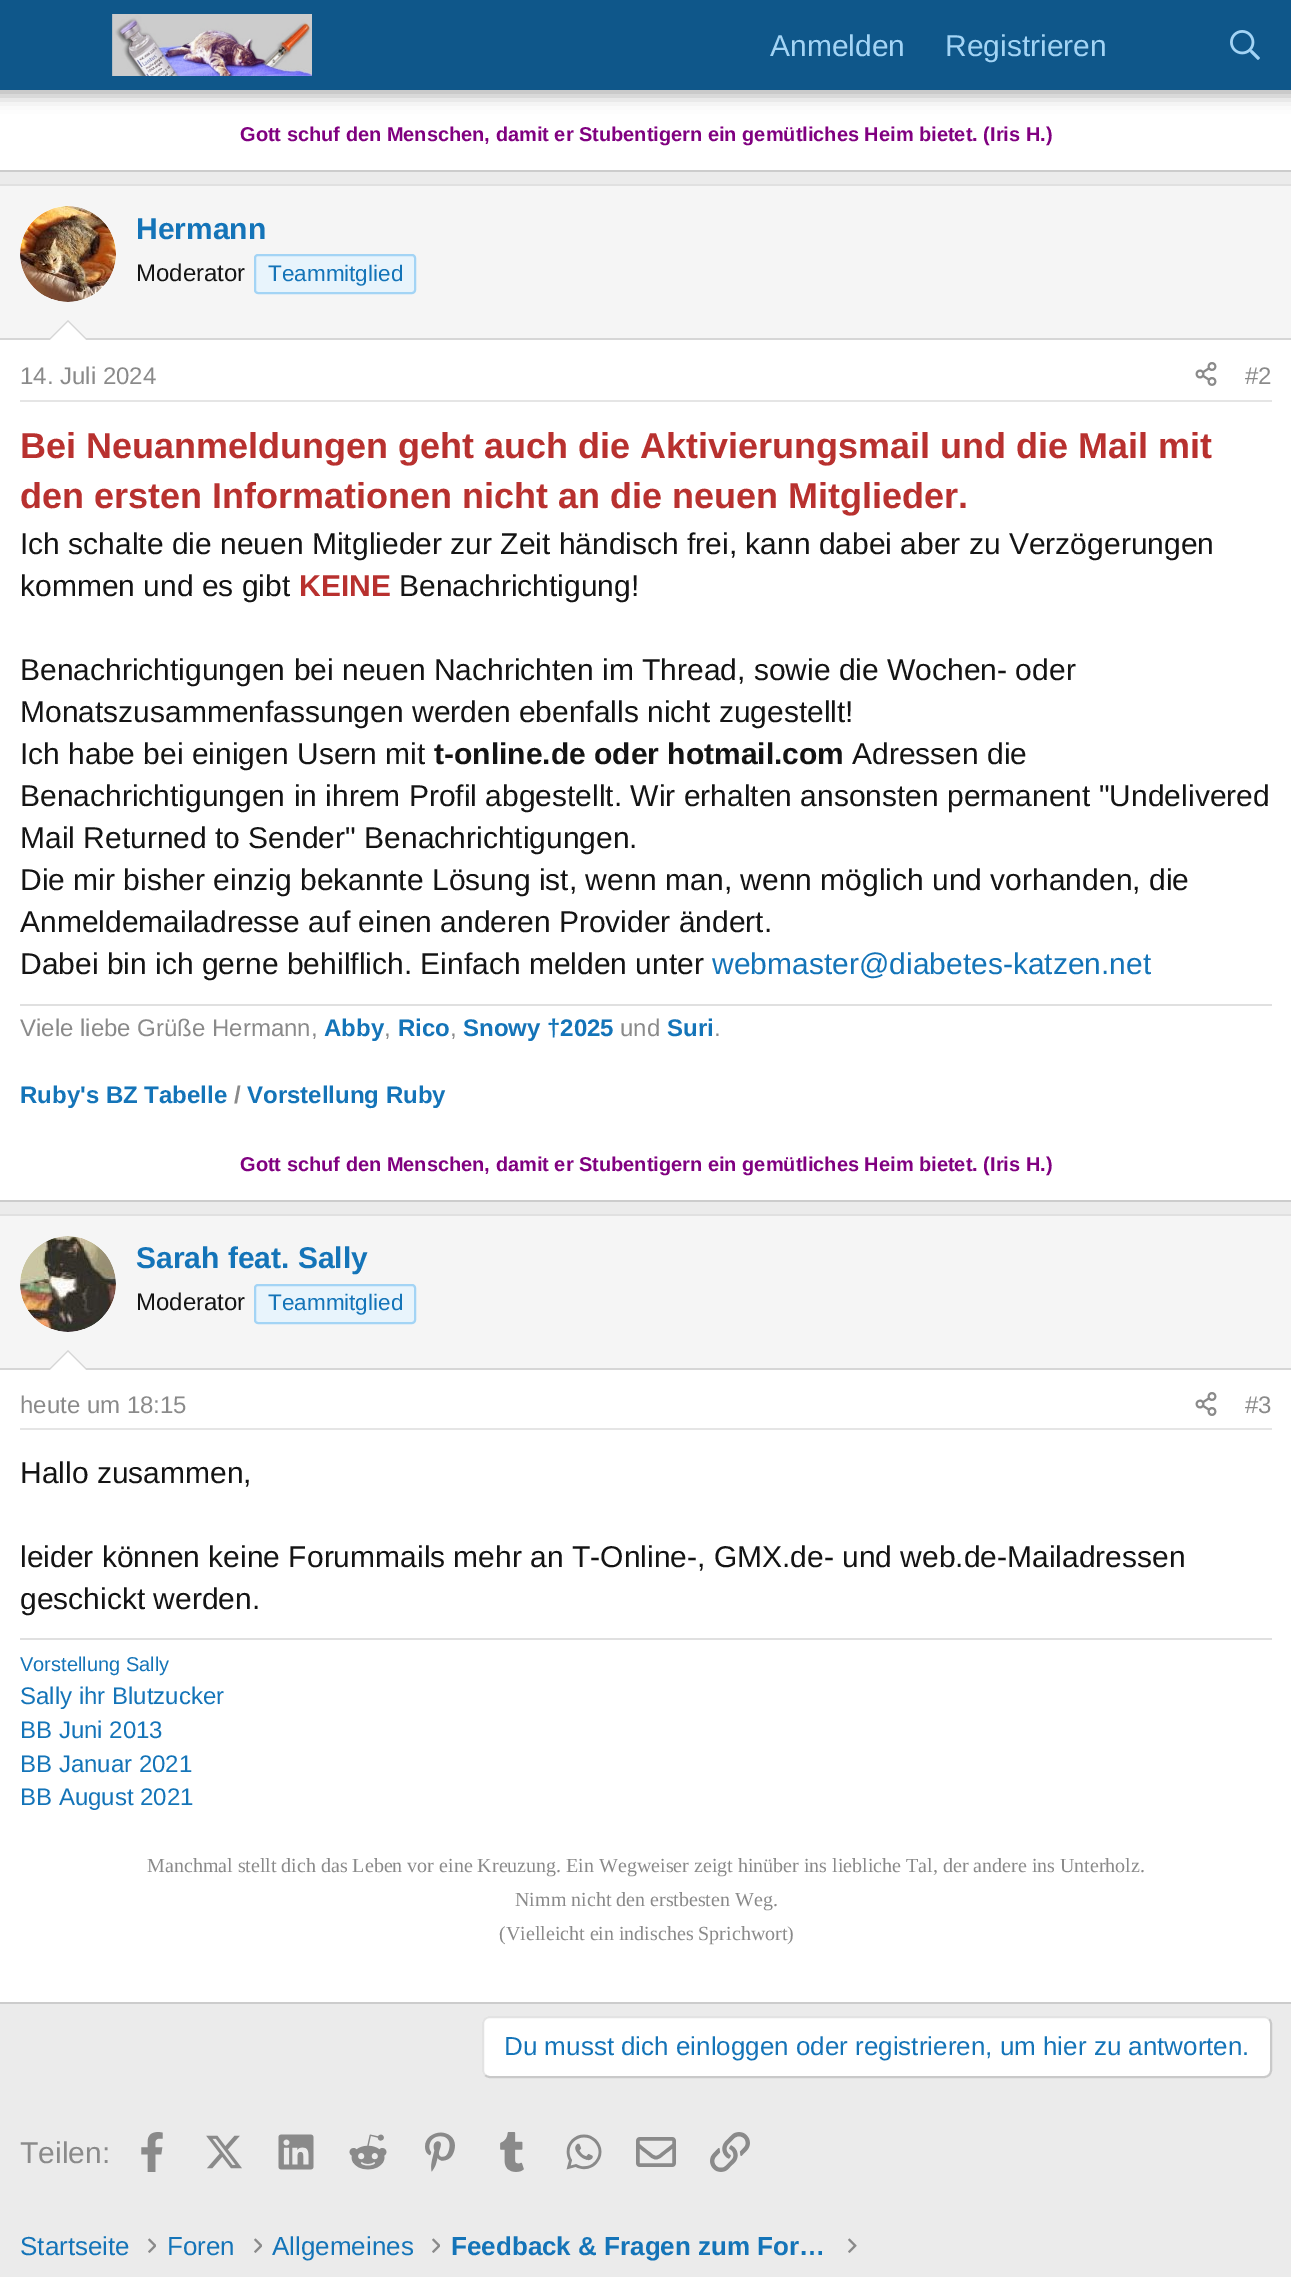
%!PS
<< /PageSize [1291 2277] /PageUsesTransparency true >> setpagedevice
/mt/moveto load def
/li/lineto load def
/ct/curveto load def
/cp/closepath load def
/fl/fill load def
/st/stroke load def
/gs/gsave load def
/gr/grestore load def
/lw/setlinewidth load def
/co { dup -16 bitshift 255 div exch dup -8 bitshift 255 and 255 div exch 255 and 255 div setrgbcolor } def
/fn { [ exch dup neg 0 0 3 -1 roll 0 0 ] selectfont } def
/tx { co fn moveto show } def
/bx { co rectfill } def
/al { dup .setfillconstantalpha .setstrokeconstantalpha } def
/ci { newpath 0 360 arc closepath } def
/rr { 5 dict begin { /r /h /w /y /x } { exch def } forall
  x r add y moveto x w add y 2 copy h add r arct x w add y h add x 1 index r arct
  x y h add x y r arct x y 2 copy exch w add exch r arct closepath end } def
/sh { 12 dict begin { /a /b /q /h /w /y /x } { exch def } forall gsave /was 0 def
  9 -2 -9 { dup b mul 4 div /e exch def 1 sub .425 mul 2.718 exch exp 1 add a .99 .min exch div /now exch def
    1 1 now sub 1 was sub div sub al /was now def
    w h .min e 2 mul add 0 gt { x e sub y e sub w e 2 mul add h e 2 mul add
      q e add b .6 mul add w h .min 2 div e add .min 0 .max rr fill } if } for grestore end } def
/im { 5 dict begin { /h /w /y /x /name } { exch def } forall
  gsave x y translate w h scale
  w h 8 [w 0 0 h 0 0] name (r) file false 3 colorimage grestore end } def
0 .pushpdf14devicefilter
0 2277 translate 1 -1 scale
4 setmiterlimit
0 0 1291 2277 16#EBEBEB bx
0 90 1291 80 16#FFFFFF bx
16#000000 co
-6 -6 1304 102 0 8 .3 sh
0 0 1291 90 16#0F578A bx
(media/1.raw) 112 14 200 62 im
(media/2.raw) 1230 30 30 30 im
0 170 1291 2 16#CCCCCC bx
0 340 1291 860 16#FFFFFF bx
0 184 1291 2 16#E0E0E0 bx
0 1200 1291 2 16#CCCCCC bx
0 186 1291 152 16#F5F5F5 bx
0 338 1291 2 16#D6D6D6 bx
16#FFFFFF co
68 254 48 ci fl
(media/3.raw) 20 206 96 96 im
16#E8F4FC co
255 255 160 38 3 rr gs fl gr
16#A3D4F5 co
2 lw
st
16#D6D6D6 co
88 340 mt 48 340 li 68 320 li cp fl
16#FFFFFF co
86 340 mt 50 340 li 68 322 li cp fl
20 400 1252 2 16#E5E5E5 bx
(media/4.raw) 1195 362 22 24 im
20 1004 1252 2 16#E0E0E0 bx
0 1370 1291 632 16#FFFFFF bx
0 1214 1291 2 16#E0E0E0 bx
0 2002 1291 2 16#CCCCCC bx
0 1216 1291 152 16#F5F5F5 bx
0 1368 1291 2 16#D6D6D6 bx
16#FFFFFF co
68 1284 48 ci fl
(media/5.raw) 20 1236 96 96 im
16#E8F4FC co
255 1285 160 38 3 rr gs fl gr
16#A3D4F5 co
st
16#D6D6D6 co
88 1370 mt 48 1370 li 68 1350 li cp fl
16#FFFFFF co
86 1370 mt 50 1370 li 68 1352 li cp fl
20 1428 1252 2 16#E5E5E5 bx
(media/6.raw) 1195 1392 22 24 im
20 1638 1252 2 16#E0E0E0 bx
16#FFFFFF co
482 2016 790 62 8 rr fl
16#C9C9C9 co
1269 2019 mt 1270.5 2020.5 1271 2022 1271 2024 ct 1271 2070 li 1271 2072 1270.5 2073.5 1269 2075 ct 1267.5 2076.5 1266 2077 1264 2077 ct 490 2077 li 488 2077 486.5 2076.5 485 2075 ct st
16#E3E3E3 co
485 2075 mt 483.5 2073.5 483 2072 483 2070 ct 483 2024 li 483 2022 483.5 2020.5 485 2019 ct 486.5 2017.5 488 2017 490 2017 ct 1264 2017 li 1266 2017 1267.5 2017.5 1269 2019 ct st
(media/7.raw) 141 2132 22 40 im
(media/8.raw) 206 2135 36 34 im
(media/9.raw) 278 2134 36 36 im
(media/10.raw) 349 2134 38 36 im
(media/11.raw) 425 2132 30 40 im
(media/12.raw) 500 2132 24 40 im
(media/13.raw) 566 2134 36 36 im
(media/14.raw) 636 2137 40 30 im
(media/15.raw) 710 2132 40 40 im
(media/16.raw) 148 2238 8 15 im
(media/16.raw) 254 2238 8 15 im
(media/16.raw) 432 2238 8 15 im
(media/17.raw) 848 2238 9 15 im
(Anmelden) 770 56 /LiberationSans-Regular 30 16#A3D4F5 tx
(Registrieren) 945 56 /LiberationSans-Regular 30 16#A3D4F5 tx
(Gott schuf den Menschen, damit er Stubentigern ein gemütliches Heim bietet. \(Iris H.\)) 240 141 /LiberationSans-Bold 20 16#800080 tx
(Hermann) 136 239 /LiberationSans-Bold 30 16#1474B8 tx
(Moderator) 136 281 /LiberationSans-Regular 24 16#141414 tx
(Teammitglied) 268 281 /LiberationSans-Regular 22.5 16#1474B8 tx
(14. Juli 2024) 20 384 /LiberationSans-Regular 24 16#8A8A8A tx
(#2) 1245 384 /LiberationSans-Regular 24 16#8A8A8A tx
(Bei Neuanmeldungen geht auch die Aktivierungsmail und die Mail mit) 20 458 /LiberationSans-Bold 36 16#B8312F tx
(den ersten Informationen nicht an die neuen Mitglieder.) 20 508 /LiberationSans-Bold 36 16#B8312F tx
(Ich schalte die neuen Mitglieder zur Zeit händisch frei, kann dabei aber zu Verzögerungen) 20 554 /LiberationSans-Regular 30 16#141414 tx
(kommen und es gibt) 20 596 /LiberationSans-Regular 30 16#141414 tx
(KEINE) 299 596 /LiberationSans-Bold 30 16#B8312F tx
(Benachrichtigung!) 399 596 /LiberationSans-Regular 30 16#141414 tx
(Benachrichtigungen bei neuen Nachrichten im Thread, sowie die Wochen- oder) 20 680 /LiberationSans-Regular 30 16#141414 tx
(Monatszusammenfassungen werden ebenfalls nicht zugestellt!) 20 722 /LiberationSans-Regular 30 16#141414 tx
(Ich habe bei einigen Usern mit) 20 764 /LiberationSans-Regular 30 16#141414 tx
(t-online.de oder hotmail.com) 434 764 /LiberationSans-Bold 30 16#141414 tx
(Adressen die) 852 764 /LiberationSans-Regular 30 16#141414 tx
(Benachrichtigungen in ihrem Profil abgestellt. Wir erhalten ansonsten permanent "Undelivered) 20 806 /LiberationSans-Regular 30 16#141414 tx
(Mail Returned to Sender" Benachrichtigungen.) 20 848 /LiberationSans-Regular 30 16#141414 tx
(Die mir bisher einzig bekannte Lösung ist, wenn man, wenn möglich und vorhanden, die) 20 890 /LiberationSans-Regular 30 16#141414 tx
(Anmeldemailadresse auf einen anderen Provider ändert.) 20 932 /LiberationSans-Regular 30 16#141414 tx
(Dabei bin ich gerne behilflich. Einfach melden unter) 20 974 /LiberationSans-Regular 30 16#141414 tx
(webmaster@diabetes-katzen.net) 712 974 /LiberationSans-Regular 30 16#1474B8 tx
(Viele liebe Grüße Hermann,) 20 1036 /LiberationSans-Regular 24 16#8A8A8A tx
(Abby) 324 1036 /LiberationSans-Bold 24 16#1474B8 tx
(,) 384 1036 /LiberationSans-Regular 24 16#8A8A8A tx
(Rico) 398 1036 /LiberationSans-Bold 24 16#1474B8 tx
(,) 450 1036 /LiberationSans-Regular 24 16#8A8A8A tx
(Snowy †2025) 463 1036 /LiberationSans-Bold 24 16#1474B8 tx
(und) 620 1036 /LiberationSans-Regular 24 16#8A8A8A tx
(Suri) 667 1036 /LiberationSans-Bold 24 16#1474B8 tx
(.) 714 1036 /LiberationSans-Regular 24 16#8A8A8A tx
(Ruby's BZ Tabelle) 20 1103 /LiberationSans-Bold 24 16#1474B8 tx
(/) 234 1103 /LiberationSans-Bold 24 16#8A8A8A tx
(Vorstellung Ruby) 247 1103 /LiberationSans-Bold 24 16#1474B8 tx
(Gott schuf den Menschen, damit er Stubentigern ein gemütliches Heim bietet. \(Iris H.\)) 240 1171 /LiberationSans-Bold 20 16#800080 tx
(Sarah feat. Sally) 136 1268 /LiberationSans-Bold 30 16#1474B8 tx
(Moderator) 136 1310 /LiberationSans-Regular 24 16#141414 tx
(Teammitglied) 268 1310 /LiberationSans-Regular 22.5 16#1474B8 tx
(heute um 18:15) 20 1413 /LiberationSans-Regular 24 16#8A8A8A tx
(#3) 1245 1413 /LiberationSans-Regular 24 16#8A8A8A tx
(Hallo zusammen,) 20 1483 /LiberationSans-Regular 30 16#141414 tx
(leider können keine Forummails mehr an T-Online-, GMX.de- und web.de-Mailadressen) 20 1567 /LiberationSans-Regular 30 16#141414 tx
(geschickt werden.) 20 1609 /LiberationSans-Regular 30 16#141414 tx
(Vorstellung Sally) 20 1671 /LiberationSans-Regular 20 16#1474B8 tx
(Sally ihr Blutzucker) 20 1704 /LiberationSans-Regular 24 16#1474B8 tx
(BB Juni 2013) 20 1738 /LiberationSans-Regular 24 16#1474B8 tx
(BB Januar 2021) 20 1772 /LiberationSans-Regular 24 16#1474B8 tx
(BB August 2021) 20 1805 /LiberationSans-Regular 24 16#1474B8 tx
(Manchmal stellt dich das Leben vor eine Kreuzung. Ein Wegweiser zeigt hinüber ins liebliche Tal, der andere ins Unterholz.) 147 1872 /LiberationSerif-Regular 20 16#8A8A8A tx
(Nimm nicht den erstbesten Weg.) 515 1906 /LiberationSerif-Regular 20 16#8A8A8A tx
(\(Vielleicht ein indisches Sprichwort\)) 499 1940 /LiberationSerif-Regular 20 16#8A8A8A tx
(Du musst dich einloggen oder registrieren, um hier zu antworten.) 504 2055 /LiberationSans-Regular 26 16#1474B8 tx
(Teilen:) 20 2163 /LiberationSans-Regular 30 16#8A8A8A tx
(Startseite) 20 2255 /LiberationSans-Regular 26 16#1474B8 tx
(Foren) 167 2255 /LiberationSans-Regular 26 16#1474B8 tx
(Allgemeines) 272 2255 /LiberationSans-Regular 26 16#1474B8 tx
(Feedback & Fragen zum For…) 451 2255 /LiberationSans-Bold 26 16#1474B8 tx
.poppdf14devicefilter showpage
